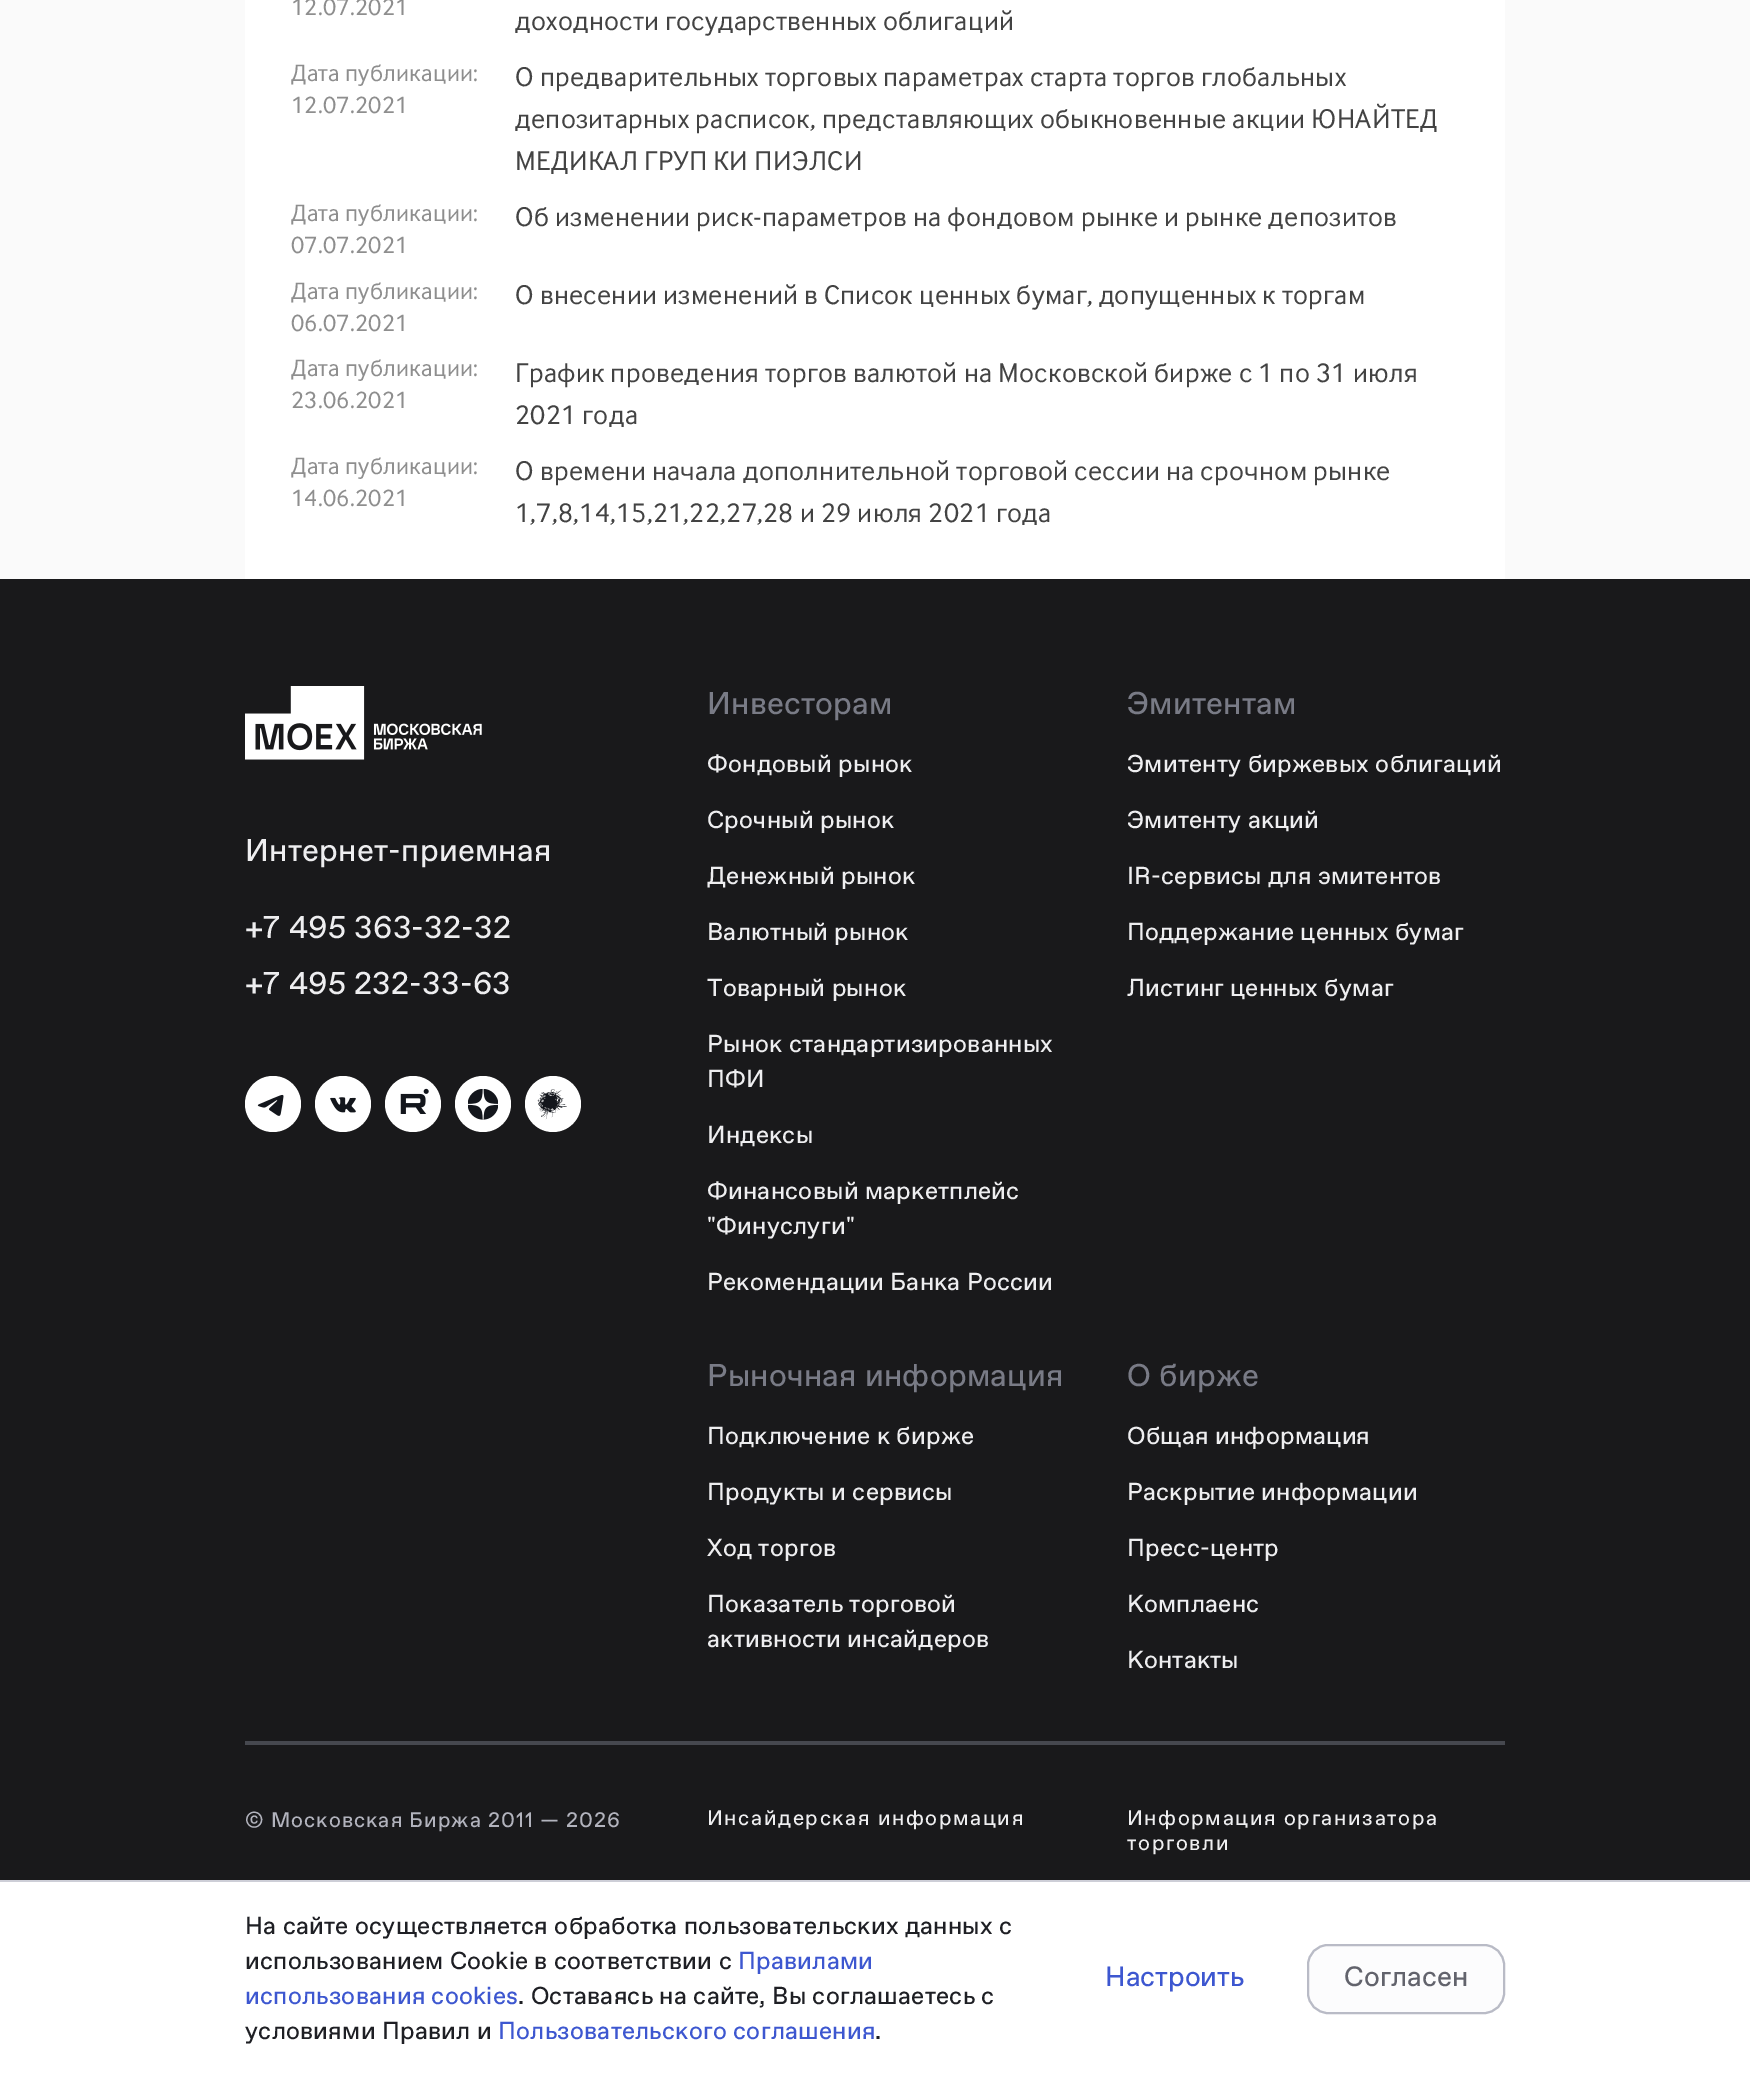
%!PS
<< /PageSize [1750 2076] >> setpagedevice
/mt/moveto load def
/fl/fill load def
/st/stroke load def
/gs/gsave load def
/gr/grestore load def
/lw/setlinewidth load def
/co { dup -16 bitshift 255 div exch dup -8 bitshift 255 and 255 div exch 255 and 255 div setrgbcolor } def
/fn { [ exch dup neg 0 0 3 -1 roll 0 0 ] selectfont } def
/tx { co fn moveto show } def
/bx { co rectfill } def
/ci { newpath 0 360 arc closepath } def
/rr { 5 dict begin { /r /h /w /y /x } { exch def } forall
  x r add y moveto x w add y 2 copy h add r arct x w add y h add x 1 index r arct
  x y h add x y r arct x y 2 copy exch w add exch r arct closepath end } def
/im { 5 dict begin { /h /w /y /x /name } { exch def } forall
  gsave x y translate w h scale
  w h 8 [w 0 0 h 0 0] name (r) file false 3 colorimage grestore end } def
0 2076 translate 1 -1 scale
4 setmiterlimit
0 0 1750 2076 16#FAFAFA bx
245 0 1260 579 16#FFFFFF bx
0 579 1750 1301 16#19191B bx
(media/1.raw) 245 686 237 74 im
16#FFFFFF co
273 1104 28 ci fl
(media/2.raw) 257 1094 27 22 im
343 1104 28 ci fl
(media/3.raw) 330 1097 26 16 im
413 1104 28 ci fl
(media/4.raw) 400 1088 29 26 im
483 1104 28 ci fl
(media/5.raw) 468 1089 30 31 im
553 1104 28 ci fl
(media/6.raw) 537 1089 30 31 im
245 1741 1260 4 16#46484F bx
0 1882 1750 194 16#FFFFFF bx
0 1880 1750 2 16#CDCED7 bx
16#FCFCFD co
1308 1945 196 68 20 rr gs fl gr
16#B9BBC6 co
2 lw
st
/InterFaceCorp-Regular 24.5 fn
16#8E8E8E co
291 15 mt .23 0 (12.07.2021) ashow
gs
515 0 945 42 rectclip
/InterFaceCorp-Regular 28 fn
16#434343 co
515 30 mt .28 0 (доходности государственных облигаций) ashow
gr
291 81 mt .23 0 (Дата публикации:) ashow
291 113 mt .23 0 (12.07.2021) ashow
/InterFaceCorp-Regular 28 fn
16#434343 co
515 86 mt .28 0 (О предварительных торговых параметрах старта торгов глобальных) ashow
gs
515 56 945 126 rectclip
515 128 mt .28 0 (депозитарных расписок, представляющих обыкновенные акции ЮНАЙТЕД) ashow
gr
515 170 mt .28 0 (МЕДИКАЛ ГРУП КИ ПИЭЛСИ) ashow
/InterFaceCorp-Regular 24.5 fn
16#8E8E8E co
291 221 mt .23 0 (Дата публикации:) ashow
291 253 mt .23 0 (07.07.2021) ashow
/InterFaceCorp-Regular 28 fn
16#434343 co
515 226 mt .28 0 (Об изменении риск-параметров на фондовом рынке и рынке депозитов) ashow
/InterFaceCorp-Regular 24.5 fn
16#8E8E8E co
291 299 mt .23 0 (Дата публикации:) ashow
291 331 mt .23 0 (06.07.2021) ashow
/InterFaceCorp-Regular 28 fn
16#434343 co
515 304 mt .28 0 (О внесении изменений в Список ценных бумаг, допущенных к торгам) ashow
/InterFaceCorp-Regular 24.5 fn
16#8E8E8E co
291 376 mt .23 0 (Дата публикации:) ashow
291 408 mt .23 0 (23.06.2021) ashow
/InterFaceCorp-Regular 28 fn
16#434343 co
515 382 mt .28 0 (График проведения торгов валютой на Московской бирже с 1 по 31 июля) ashow
515 424 mt .28 0 (2021 года) ashow
/InterFaceCorp-Regular 24.5 fn
16#8E8E8E co
291 474 mt .23 0 (Дата публикации:) ashow
291 506 mt .23 0 (14.06.2021) ashow
/InterFaceCorp-Regular 28 fn
16#434343 co
515 480 mt .28 0 (О времени начала дополнительной торговой сессии на срочном рынке) ashow
515 522 mt .28 0 (1,7,8,14,15,21,22,27,28 и 29 июля 2021 года) ashow
/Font-Regular 31.5 fn
16#EEEEF0 co
245 861 mt .23 0 (Интернет-приемная) ashow
245 938 mt .23 0 (+7 495 363-32-32) ashow
245 994 mt .23 0 (+7 495 232-33-63) ashow
16#797B86 co
707 714 mt .23 0 (Инвесторам) ashow
/Font-Regular 24.5 fn
16#EEEEF0 co
707 772 mt .23 0 (Фондовый рынок) ashow
707 828 mt .23 0 (Срочный рынок) ashow
707 884 mt .23 0 (Денежный рынок) ashow
707 940 mt .23 0 (Валютный рынок) ashow
707 996 mt .23 0 (Товарный рынок) ashow
707 1052 mt .23 0 (Рынок стандартизированных) ashow
707 1087 mt .23 0 (ПФИ) ashow
707 1143 mt .23 0 (Индексы) ashow
707 1199 mt .23 0 (Финансовый маркетплейс) ashow
707 1234 mt .23 0 ("Финуслуги") ashow
707 1290 mt .23 0 (Рекомендации Банка России) ashow
/Font-Regular 31.5 fn
16#797B86 co
1127 714 mt .23 0 (Эмитентам) ashow
/Font-Regular 24.5 fn
16#EEEEF0 co
1127 772 mt .23 0 (Эмитенту биржевых облигаций) ashow
1127 828 mt .23 0 (Эмитенту акций) ashow
1127 884 mt .23 0 (IR-сервисы для эмитентов) ashow
1127 940 mt .23 0 (Поддержание ценных бумаг) ashow
1127 996 mt .23 0 (Листинг ценных бумаг) ashow
/Font-Regular 31.5 fn
16#797B86 co
707 1386 mt .23 0 (Рыночная информация) ashow
/Font-Regular 24.5 fn
16#EEEEF0 co
707 1444 mt .23 0 (Подключение к бирже) ashow
707 1500 mt .23 0 (Продукты и сервисы) ashow
707 1556 mt .23 0 (Ход торгов) ashow
707 1612 mt .23 0 (Показатель торговой) ashow
707 1647 mt .23 0 (активности инсайдеров) ashow
/Font-Regular 31.5 fn
16#797B86 co
1127 1386 mt .23 0 (О бирже) ashow
/Font-Regular 24.5 fn
16#EEEEF0 co
1127 1444 mt .23 0 (Общая информация) ashow
1127 1500 mt .23 0 (Раскрытие информации) ashow
1127 1556 mt .23 0 (Пресс-центр) ashow
1127 1612 mt .23 0 (Комплаенс) ashow
1127 1668 mt .23 0 (Контакты) ashow
/Font-Regular 21 fn
16#B2B3BD co
245 1827 mt 1.05 0 (© Московская Биржа 2011 — 2026) ashow
16#EEEEF0 co
707 1825 mt 1.6 0 (Инсайдерская информация) ashow
1127 1825 mt 1.6 0 (Информация организатора) ashow
1127 1850 mt 1.6 0 (торговли) ashow
/Font-Regular 24.5 fn
16#1E1F24 co
245 1934 mt .23 0 (На сайте осуществляется обработка пользовательских данных с) ashow
245 1969 mt .23 0 (использованием Cookie в соответствии с) ashow
16#3D57D0 co
738 1969 mt .23 0 (Правилами) ashow
245 2004 mt .23 0 (использования cookies) ashow
16#1E1F24 co
518 2004 mt .23 0 (. Оставаясь на сайте, Вы соглашаетесь с) ashow
245 2039 mt .23 0 (условиями Правил и) ashow
16#3D57D0 co
498 2039 mt .23 0 (Пользовательского соглашения) ashow
16#1E1F24 co
875 2039 mt .23 0 (.) ashow
(Настроить) 1105 1986 /Font-Regular 28 16#3D57D0 tx
(Согласен) 1344 1986 /Font-Regular 28 16#62636C tx
showpage
